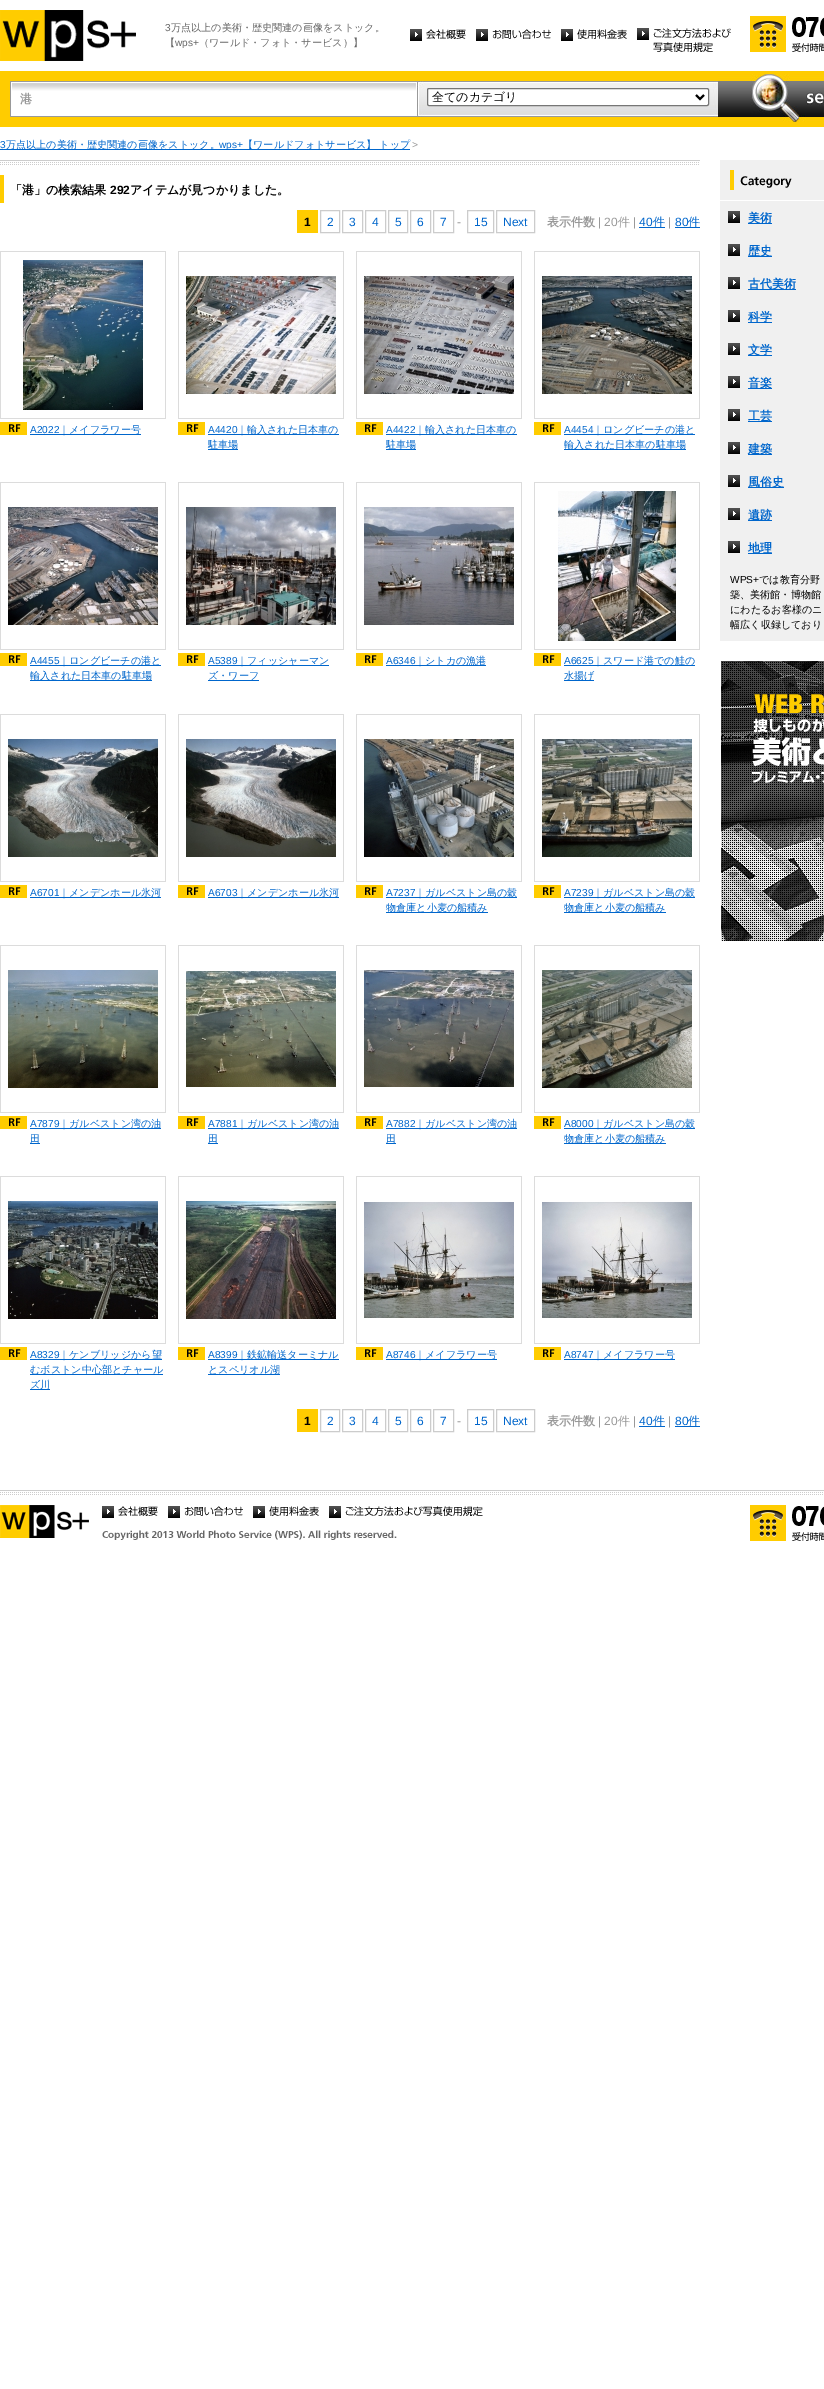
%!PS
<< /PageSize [824 2389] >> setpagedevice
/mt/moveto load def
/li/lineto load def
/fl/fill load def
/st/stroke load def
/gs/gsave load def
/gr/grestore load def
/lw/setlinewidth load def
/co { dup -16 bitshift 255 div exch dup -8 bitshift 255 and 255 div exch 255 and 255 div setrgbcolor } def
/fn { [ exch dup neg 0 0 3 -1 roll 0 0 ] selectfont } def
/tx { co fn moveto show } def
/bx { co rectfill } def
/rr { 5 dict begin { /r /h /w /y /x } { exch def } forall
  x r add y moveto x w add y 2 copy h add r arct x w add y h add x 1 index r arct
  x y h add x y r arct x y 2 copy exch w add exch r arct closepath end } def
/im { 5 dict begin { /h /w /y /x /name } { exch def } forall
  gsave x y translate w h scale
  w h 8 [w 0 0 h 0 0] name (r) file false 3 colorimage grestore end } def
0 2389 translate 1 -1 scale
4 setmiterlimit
0 0 824 2389 16#FFFFFF bx
(media/1.raw) 0 10 136 51 im
(media/2.raw) 410 29 56 12 im
(media/3.raw) 476 29 75 12 im
(media/4.raw) 561 29 66 12 im
(media/5.raw) 637 28 94 24 im
(media/6.raw) 750 16 74 36 im
0 71 824 56 16#FFCC00 bx
(media/7.raw) 10 81 407 36 im
(media/8.raw) 417 81 301 36 im
16#FFFFFF co
427.5 88.5 281 17 1.5 rr gs fl gr
16#767676 co
st
16#000000 co
2 lw
696 95 mt 700 99 li 704 95 li st
(media/9.raw) 718 74 106 48 im
0 149 410 1 16#0066CC bx
(media/10.raw) 0 160 700 5 im
0 175 4 28 16#FFCC00 bx
297 210 21 23 16#FFCC00 bx
16#CCCCCC co
1 lw
320.5 210.5 19 22 rectstroke
342.5 210.5 20 22 rectstroke
365.5 210.5 20 22 rectstroke
388.5 210.5 19 22 rectstroke
410.5 210.5 20 22 rectstroke
433.5 210.5 20 22 rectstroke
467.5 210.5 26 22 rectstroke
496.5 210.5 38 22 rectstroke
639 227 26 1 16#0066CC bx
675 227 25 1 16#0066CC bx
0 251 166 1 16#DCDCDC bx
165 251 1 168 16#DCDCDC bx
0 418 166 1 16#DCDCDC bx
0 251 1 168 16#DCDCDC bx
(media/11.raw) 23 260 120 150 im
(media/12.raw) 0 422 27 13 im
30 434 111 1 16#0066CC bx
178 251 166 1 16#DCDCDC bx
343 251 1 168 16#DCDCDC bx
178 418 166 1 16#DCDCDC bx
178 251 1 168 16#DCDCDC bx
(media/13.raw) 186 276 150 118 im
(media/12.raw) 178 422 27 13 im
208 434 131 1 16#0066CC bx
208 449 30 1 16#0066CC bx
356 251 166 1 16#DCDCDC bx
521 251 1 168 16#DCDCDC bx
356 418 166 1 16#DCDCDC bx
356 251 1 168 16#DCDCDC bx
(media/14.raw) 364 276 150 118 im
(media/12.raw) 356 422 27 13 im
386 434 131 1 16#0066CC bx
386 449 30 1 16#0066CC bx
534 251 166 1 16#DCDCDC bx
699 251 1 168 16#DCDCDC bx
534 418 166 1 16#DCDCDC bx
534 251 1 168 16#DCDCDC bx
(media/15.raw) 542 276 150 118 im
(media/12.raw) 534 422 27 13 im
564 434 131 1 16#0066CC bx
564 449 122 1 16#0066CC bx
0 482 166 1 16#DCDCDC bx
165 482 1 168 16#DCDCDC bx
0 649 166 1 16#DCDCDC bx
0 482 1 168 16#DCDCDC bx
(media/16.raw) 8 507 150 118 im
(media/12.raw) 0 653 27 13 im
30 665 131 1 16#0066CC bx
30 680 122 1 16#0066CC bx
178 482 166 1 16#DCDCDC bx
343 482 1 168 16#DCDCDC bx
178 649 166 1 16#DCDCDC bx
178 482 1 168 16#DCDCDC bx
(media/17.raw) 186 507 150 118 im
(media/12.raw) 178 653 27 13 im
208 665 121 1 16#0066CC bx
208 680 51 1 16#0066CC bx
356 482 166 1 16#DCDCDC bx
521 482 1 168 16#DCDCDC bx
356 649 166 1 16#DCDCDC bx
356 482 1 168 16#DCDCDC bx
(media/18.raw) 364 507 150 118 im
(media/12.raw) 356 653 27 13 im
386 665 100 1 16#0066CC bx
534 482 166 1 16#DCDCDC bx
699 482 1 168 16#DCDCDC bx
534 649 166 1 16#DCDCDC bx
534 482 1 168 16#DCDCDC bx
(media/19.raw) 558 491 118 150 im
(media/12.raw) 534 653 27 13 im
564 665 131 1 16#0066CC bx
564 680 30 1 16#0066CC bx
0 714 166 1 16#DCDCDC bx
165 714 1 168 16#DCDCDC bx
0 881 166 1 16#DCDCDC bx
0 714 1 168 16#DCDCDC bx
(media/20.raw) 8 739 150 118 im
(media/12.raw) 0 885 27 13 im
30 897 131 1 16#0066CC bx
178 714 166 1 16#DCDCDC bx
343 714 1 168 16#DCDCDC bx
178 881 166 1 16#DCDCDC bx
178 714 1 168 16#DCDCDC bx
(media/21.raw) 186 739 150 118 im
(media/12.raw) 178 885 27 13 im
208 897 131 1 16#0066CC bx
356 714 166 1 16#DCDCDC bx
521 714 1 168 16#DCDCDC bx
356 881 166 1 16#DCDCDC bx
356 714 1 168 16#DCDCDC bx
(media/22.raw) 364 739 150 118 im
(media/12.raw) 356 885 27 13 im
386 897 131 1 16#0066CC bx
386 912 102 1 16#0066CC bx
534 714 166 1 16#DCDCDC bx
699 714 1 168 16#DCDCDC bx
534 881 166 1 16#DCDCDC bx
534 714 1 168 16#DCDCDC bx
(media/23.raw) 542 739 150 118 im
(media/12.raw) 534 885 27 13 im
564 897 131 1 16#0066CC bx
564 912 102 1 16#0066CC bx
0 945 166 1 16#DCDCDC bx
165 945 1 168 16#DCDCDC bx
0 1112 166 1 16#DCDCDC bx
0 945 1 168 16#DCDCDC bx
(media/24.raw) 8 970 150 118 im
(media/12.raw) 0 1116 27 13 im
30 1128 131 1 16#0066CC bx
30 1143 10 1 16#0066CC bx
178 945 166 1 16#DCDCDC bx
343 945 1 168 16#DCDCDC bx
178 1112 166 1 16#DCDCDC bx
178 945 1 168 16#DCDCDC bx
(media/25.raw) 186 971 150 116 im
(media/12.raw) 178 1116 27 13 im
208 1128 131 1 16#0066CC bx
208 1143 10 1 16#0066CC bx
356 945 166 1 16#DCDCDC bx
521 945 1 168 16#DCDCDC bx
356 1112 166 1 16#DCDCDC bx
356 945 1 168 16#DCDCDC bx
(media/26.raw) 364 970 150 117 im
(media/12.raw) 356 1116 27 13 im
386 1128 131 1 16#0066CC bx
386 1143 10 1 16#0066CC bx
534 945 166 1 16#DCDCDC bx
699 945 1 168 16#DCDCDC bx
534 1112 166 1 16#DCDCDC bx
534 945 1 168 16#DCDCDC bx
(media/27.raw) 542 970 150 118 im
(media/12.raw) 534 1116 27 13 im
564 1128 131 1 16#0066CC bx
564 1143 102 1 16#0066CC bx
0 1176 166 1 16#DCDCDC bx
165 1176 1 168 16#DCDCDC bx
0 1343 166 1 16#DCDCDC bx
0 1176 1 168 16#DCDCDC bx
(media/28.raw) 8 1201 150 118 im
(media/12.raw) 0 1347 27 13 im
30 1359 132 1 16#0066CC bx
30 1374 133 1 16#0066CC bx
30 1389 20 1 16#0066CC bx
178 1176 166 1 16#DCDCDC bx
343 1176 1 168 16#DCDCDC bx
178 1343 166 1 16#DCDCDC bx
178 1176 1 168 16#DCDCDC bx
(media/29.raw) 186 1201 150 118 im
(media/12.raw) 178 1347 27 13 im
208 1359 131 1 16#0066CC bx
208 1374 72 1 16#0066CC bx
356 1176 166 1 16#DCDCDC bx
521 1176 1 168 16#DCDCDC bx
356 1343 166 1 16#DCDCDC bx
356 1176 1 168 16#DCDCDC bx
(media/30.raw) 364 1202 150 116 im
(media/12.raw) 356 1347 27 13 im
386 1359 111 1 16#0066CC bx
534 1176 166 1 16#DCDCDC bx
699 1176 1 168 16#DCDCDC bx
534 1343 166 1 16#DCDCDC bx
534 1176 1 168 16#DCDCDC bx
(media/31.raw) 542 1202 150 116 im
(media/12.raw) 534 1347 27 13 im
564 1359 111 1 16#0066CC bx
297 1409 21 23 16#FFCC00 bx
16#CCCCCC co
320.5 1409.5 19 22 rectstroke
342.5 1409.5 20 22 rectstroke
365.5 1409.5 20 22 rectstroke
388.5 1409.5 19 22 rectstroke
410.5 1409.5 20 22 rectstroke
433.5 1409.5 20 22 rectstroke
467.5 1409.5 26 22 rectstroke
496.5 1409.5 38 22 rectstroke
639 1426 26 1 16#0066CC bx
675 1426 25 1 16#0066CC bx
(media/32.raw) 720 160 104 40 im
720 201 104 440 16#F0F0F0 bx
(media/33.raw) 728 211 12 12 im
748 223 24 1 16#0066CC bx
(media/33.raw) 728 244 12 12 im
748 256 24 1 16#0066CC bx
(media/33.raw) 728 277 12 12 im
748 289 48 1 16#0066CC bx
(media/33.raw) 728 310 12 12 im
748 322 24 1 16#0066CC bx
(media/33.raw) 728 343 12 12 im
748 355 24 1 16#0066CC bx
(media/33.raw) 728 376 12 12 im
748 388 24 1 16#0066CC bx
(media/33.raw) 728 409 12 12 im
748 421 24 1 16#0066CC bx
(media/33.raw) 728 442 12 12 im
748 454 24 1 16#0066CC bx
(media/33.raw) 728 475 12 12 im
748 487 36 1 16#0066CC bx
(media/33.raw) 728 508 12 12 im
748 520 24 1 16#0066CC bx
(media/33.raw) 728 541 12 12 im
748 553 24 1 16#0066CC bx
(media/34.raw) 721 661 103 280 im
(media/35.raw) 0 1490 824 5 im
(media/36.raw) 0 1505 89 33 im
(media/2.raw) 102 1506 56 12 im
(media/3.raw) 168 1506 75 12 im
(media/4.raw) 253 1506 66 12 im
(media/37.raw) 329 1506 154 12 im
(media/6.raw) 750 1505 74 36 im
(media/38.raw) 102 1530 295 10 im
(3) 165 31 /LiberationSans-Regular 10.1 16#666666 tx
(万点以上の美術・歴史関連の画像をストック。) 171 31 /WenQuanYiZenHei-Medium 10.1 16#666666 tx
(【) 165 46 /WenQuanYiZenHei-Medium 10.1 16#666666 tx
(wps+) 175 46 /LiberationSans-Regular 10.1 16#666666 tx
(（ワールド・フォト・サービス）】) 199 46 /WenQuanYiZenHei-Medium 10.1 16#666666 tx
(港) 20 103 /WenQuanYiZenHei-Bold 12 16#999999 tx
(全てのカテゴリ) 432 101 /WenQuanYiZenHei-Medium 12 16#000000 tx
(3) 0 148 /LiberationSans-Regular 10.1 16#0066CC tx
(万点以上の美術・歴史関連の画像をストック。) 6 148 /WenQuanYiZenHei-Medium 10.1 16#0066CC tx
(wps+) 219 148 /LiberationSans-Regular 10.1 16#0066CC tx
(【ワールドフォトサービス】 トップ) 243 148 /WenQuanYiZenHei-Medium 10.1 16#0066CC tx
(>) 412 148 /LiberationSans-Regular 10.1 16#999999 tx
(「港」の検索結果) 10 194 /WenQuanYiZenHei-Bold 12 16#000000 tx
(292) 110 194 /LiberationSans-Bold 12 16#000000 tx
(アイテムが見つかりました。) 130 194 /WenQuanYiZenHei-Bold 12 16#000000 tx
(1) 304 226 /LiberationSans-Bold 12 16#000000 tx
(2) 327 226 /LiberationSans-Regular 12 16#0066CC tx
(3) 349 226 /LiberationSans-Regular 12 16#0066CC tx
(4) 372 226 /LiberationSans-Regular 12 16#0066CC tx
(5) 395 226 /LiberationSans-Regular 12 16#0066CC tx
(6) 417 226 /LiberationSans-Regular 12 16#0066CC tx
(7) 440 226 /LiberationSans-Regular 12 16#0066CC tx
(-) 457 226 /LiberationSans-Regular 12 16#999999 tx
(15) 474 226 /LiberationSans-Regular 12 16#0066CC tx
(Next) 503 226 /LiberationSans-Regular 12 16#0066CC tx
(表示件数) 547 226 /WenQuanYiZenHei-Bold 12 16#999999 tx
(| 20) 598 226 /LiberationSans-Regular 12 16#999999 tx
(件) 618 226 /WenQuanYiZenHei-Medium 12 16#999999 tx
(|) 633 226 /LiberationSans-Regular 12 16#999999 tx
(40) 639 226 /LiberationSans-Regular 12 16#0066CC tx
(件) 653 226 /WenQuanYiZenHei-Medium 12 16#0066CC tx
(|) 668 226 /LiberationSans-Regular 12 16#999999 tx
(80) 675 226 /LiberationSans-Regular 12 16#0066CC tx
(件) 688 226 /WenQuanYiZenHei-Medium 12 16#0066CC tx
(A2022) 30 433 /LiberationSans-Regular 10.1 16#0066CC tx
(｜メイフラワー号) 59 433 /WenQuanYiZenHei-Medium 10.1 16#0066CC tx
(A4420) 208 433 /LiberationSans-Regular 10.1 16#0066CC tx
(｜輸入された日本車の) 237 433 /WenQuanYiZenHei-Medium 10.1 16#0066CC tx
(駐車場) 208 448 /WenQuanYiZenHei-Medium 10.1 16#0066CC tx
(A4422) 386 433 /LiberationSans-Regular 10.1 16#0066CC tx
(｜輸入された日本車の) 415 433 /WenQuanYiZenHei-Medium 10.1 16#0066CC tx
(駐車場) 386 448 /WenQuanYiZenHei-Medium 10.1 16#0066CC tx
(A4454) 564 433 /LiberationSans-Regular 10.1 16#0066CC tx
(｜ロングビーチの港と) 593 433 /WenQuanYiZenHei-Medium 10.1 16#0066CC tx
(輸入された日本車の駐車場) 564 448 /WenQuanYiZenHei-Medium 10.1 16#0066CC tx
(A4455) 30 664 /LiberationSans-Regular 10.1 16#0066CC tx
(｜ロングビーチの港と) 59 664 /WenQuanYiZenHei-Medium 10.1 16#0066CC tx
(輸入された日本車の駐車場) 30 679 /WenQuanYiZenHei-Medium 10.1 16#0066CC tx
(A5389) 208 664 /LiberationSans-Regular 10.1 16#0066CC tx
(｜フィッシャーマン) 237 664 /WenQuanYiZenHei-Medium 10.1 16#0066CC tx
(ズ・ワーフ) 208 679 /WenQuanYiZenHei-Medium 10.1 16#0066CC tx
(A6346) 386 664 /LiberationSans-Regular 10.1 16#0066CC tx
(｜シトカの漁港) 415 664 /WenQuanYiZenHei-Medium 10.1 16#0066CC tx
(A6625) 564 664 /LiberationSans-Regular 10.1 16#0066CC tx
(｜スワード港での鮭の) 593 664 /WenQuanYiZenHei-Medium 10.1 16#0066CC tx
(水揚げ) 564 679 /WenQuanYiZenHei-Medium 10.1 16#0066CC tx
(A6701) 30 896 /LiberationSans-Regular 10.1 16#0066CC tx
(｜メンデンホール氷河) 59 896 /WenQuanYiZenHei-Medium 10.1 16#0066CC tx
(A6703) 208 896 /LiberationSans-Regular 10.1 16#0066CC tx
(｜メンデンホール氷河) 237 896 /WenQuanYiZenHei-Medium 10.1 16#0066CC tx
(A7237) 386 896 /LiberationSans-Regular 10.1 16#0066CC tx
(｜ガルベストン島の穀) 415 896 /WenQuanYiZenHei-Medium 10.1 16#0066CC tx
(物倉庫と小麦の船積み) 386 911 /WenQuanYiZenHei-Medium 10.1 16#0066CC tx
(A7239) 564 896 /LiberationSans-Regular 10.1 16#0066CC tx
(｜ガルベストン島の穀) 593 896 /WenQuanYiZenHei-Medium 10.1 16#0066CC tx
(物倉庫と小麦の船積み) 564 911 /WenQuanYiZenHei-Medium 10.1 16#0066CC tx
(A7879) 30 1127 /LiberationSans-Regular 10.1 16#0066CC tx
(｜ガルベストン湾の油) 59 1127 /WenQuanYiZenHei-Medium 10.1 16#0066CC tx
(田) 30 1142 /WenQuanYiZenHei-Medium 10.1 16#0066CC tx
(A7881) 208 1127 /LiberationSans-Regular 10.1 16#0066CC tx
(｜ガルベストン湾の油) 237 1127 /WenQuanYiZenHei-Medium 10.1 16#0066CC tx
(田) 208 1142 /WenQuanYiZenHei-Medium 10.1 16#0066CC tx
(A7882) 386 1127 /LiberationSans-Regular 10.1 16#0066CC tx
(｜ガルベストン湾の油) 415 1127 /WenQuanYiZenHei-Medium 10.1 16#0066CC tx
(田) 386 1142 /WenQuanYiZenHei-Medium 10.1 16#0066CC tx
(A8000) 564 1127 /LiberationSans-Regular 10.1 16#0066CC tx
(｜ガルベストン島の穀) 593 1127 /WenQuanYiZenHei-Medium 10.1 16#0066CC tx
(物倉庫と小麦の船積み) 564 1142 /WenQuanYiZenHei-Medium 10.1 16#0066CC tx
(A8329) 30 1358 /LiberationSans-Regular 10.1 16#0066CC tx
(｜ケンブリッジから望) 59 1358 /WenQuanYiZenHei-Medium 10.1 16#0066CC tx
(むボストン中心部とチャール) 30 1373 /WenQuanYiZenHei-Medium 10.1 16#0066CC tx
(ズ川) 30 1388 /WenQuanYiZenHei-Medium 10.1 16#0066CC tx
(A8399) 208 1358 /LiberationSans-Regular 10.1 16#0066CC tx
(｜鉄鉱輸送ターミナル) 237 1358 /WenQuanYiZenHei-Medium 10.1 16#0066CC tx
(とスペリオル湖) 208 1373 /WenQuanYiZenHei-Medium 10.1 16#0066CC tx
(A8746) 386 1358 /LiberationSans-Regular 10.1 16#0066CC tx
(｜メイフラワー号) 415 1358 /WenQuanYiZenHei-Medium 10.1 16#0066CC tx
(A8747) 564 1358 /LiberationSans-Regular 10.1 16#0066CC tx
(｜メイフラワー号) 593 1358 /WenQuanYiZenHei-Medium 10.1 16#0066CC tx
(1) 304 1425 /LiberationSans-Bold 12 16#000000 tx
(2) 327 1425 /LiberationSans-Regular 12 16#0066CC tx
(3) 349 1425 /LiberationSans-Regular 12 16#0066CC tx
(4) 372 1425 /LiberationSans-Regular 12 16#0066CC tx
(5) 395 1425 /LiberationSans-Regular 12 16#0066CC tx
(6) 417 1425 /LiberationSans-Regular 12 16#0066CC tx
(7) 440 1425 /LiberationSans-Regular 12 16#0066CC tx
(-) 457 1425 /LiberationSans-Regular 12 16#999999 tx
(15) 474 1425 /LiberationSans-Regular 12 16#0066CC tx
(Next) 503 1425 /LiberationSans-Regular 12 16#0066CC tx
(表示件数) 547 1425 /WenQuanYiZenHei-Bold 12 16#999999 tx
(| 20) 598 1425 /LiberationSans-Regular 12 16#999999 tx
(件) 618 1425 /WenQuanYiZenHei-Medium 12 16#999999 tx
(|) 633 1425 /LiberationSans-Regular 12 16#999999 tx
(40) 639 1425 /LiberationSans-Regular 12 16#0066CC tx
(件) 653 1425 /WenQuanYiZenHei-Medium 12 16#0066CC tx
(|) 668 1425 /LiberationSans-Regular 12 16#999999 tx
(80) 675 1425 /LiberationSans-Regular 12 16#0066CC tx
(件) 688 1425 /WenQuanYiZenHei-Medium 12 16#0066CC tx
(美術) 748 222 /WenQuanYiZenHei-Bold 12 16#0066CC tx
(歴史) 748 255 /WenQuanYiZenHei-Bold 12 16#0066CC tx
(古代美術) 748 288 /WenQuanYiZenHei-Bold 12 16#0066CC tx
(科学) 748 321 /WenQuanYiZenHei-Bold 12 16#0066CC tx
(文学) 748 354 /WenQuanYiZenHei-Bold 12 16#0066CC tx
(音楽) 748 387 /WenQuanYiZenHei-Bold 12 16#0066CC tx
(工芸) 748 420 /WenQuanYiZenHei-Bold 12 16#0066CC tx
(建築) 748 453 /WenQuanYiZenHei-Bold 12 16#0066CC tx
(風俗史) 748 486 /WenQuanYiZenHei-Bold 12 16#0066CC tx
(遺跡) 748 519 /WenQuanYiZenHei-Bold 12 16#0066CC tx
(地理) 748 552 /WenQuanYiZenHei-Bold 12 16#0066CC tx
(WPS+) 730 583 /LiberationSans-Regular 10.1 16#000000 tx
(では教育分野) 759 583 /WenQuanYiZenHei-Medium 10.1 16#000000 tx
(築、美術館・博物館) 730 598 /WenQuanYiZenHei-Medium 10.1 16#000000 tx
(にわたるお客様のニ) 730 613 /WenQuanYiZenHei-Medium 10.1 16#000000 tx
(幅広く収録しており) 730 628 /WenQuanYiZenHei-Medium 10.1 16#000000 tx
showpage
